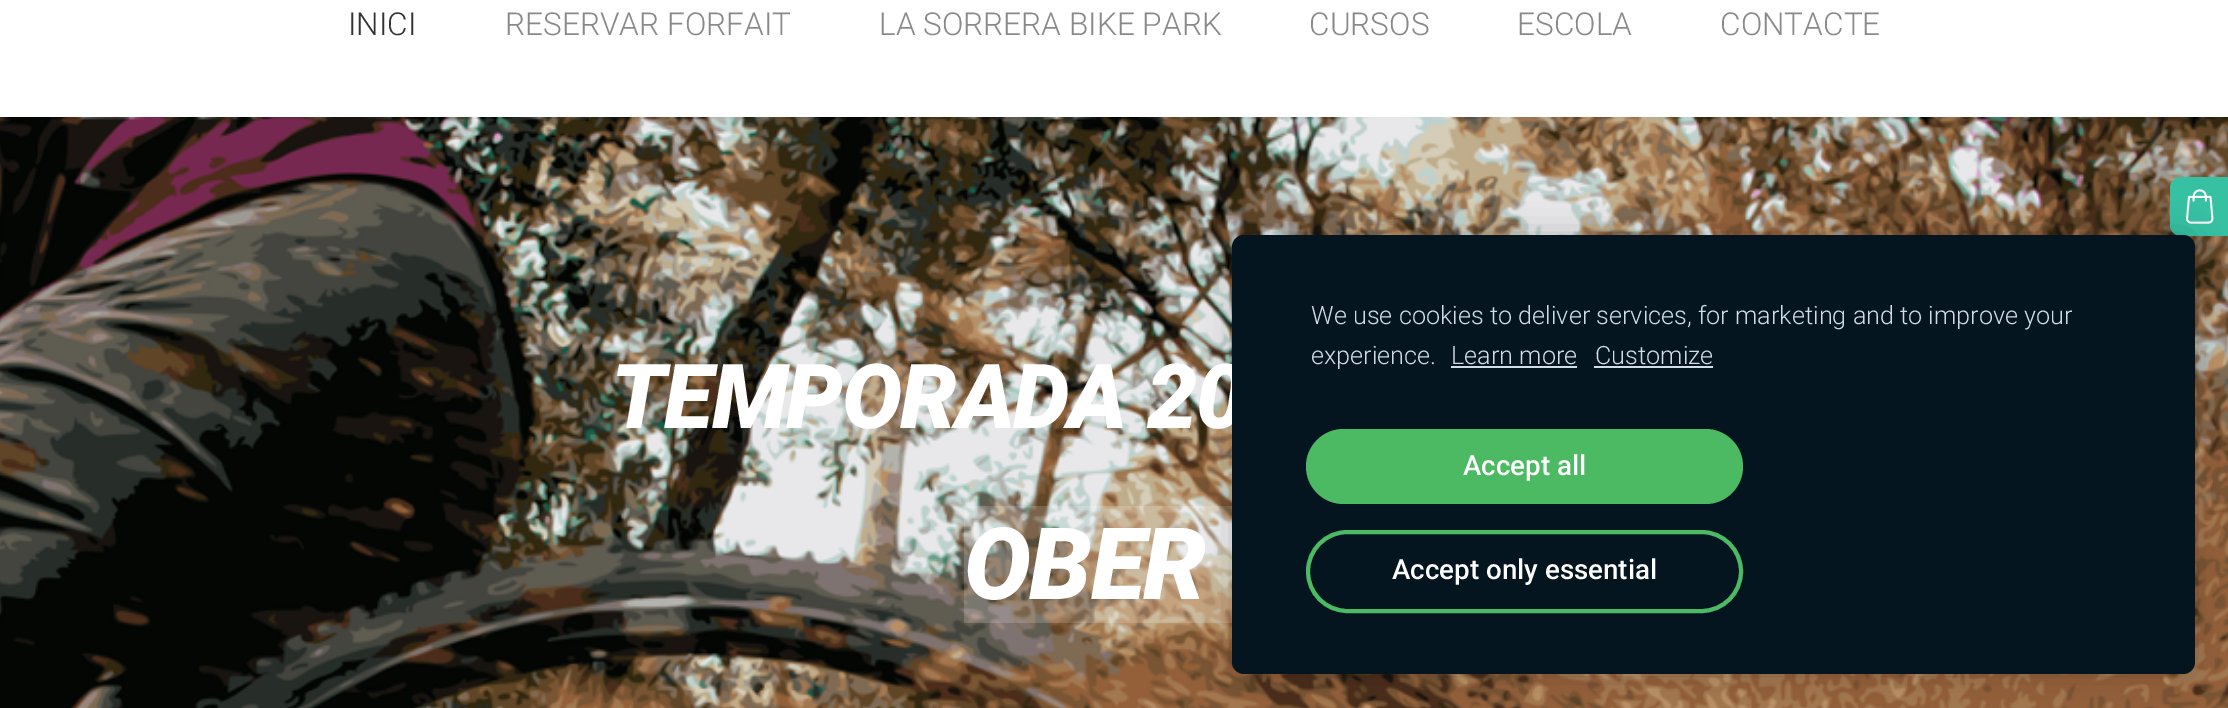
%!PS
<< /PageSize [2228 708] /PageUsesTransparency true >> setpagedevice
/mt/moveto load def
/li/lineto load def
/ct/curveto load def
/cp/closepath load def
/fl/fill load def
/st/stroke load def
/lw/setlinewidth load def
/co { dup -16 bitshift 255 div exch dup -8 bitshift 255 and 255 div exch 255 and 255 div setrgbcolor } def
/fn { [ exch dup neg 0 0 3 -1 roll 0 0 ] selectfont } def
/tx { co fn moveto show } def
/bx { co rectfill } def
/al { dup .setfillconstantalpha .setstrokeconstantalpha } def
/rr { 5 dict begin { /r /h /w /y /x } { exch def } forall
  x r add y moveto x w add y 2 copy h add r arct x w add y h add x 1 index r arct
  x y h add x y r arct x y 2 copy exch w add exch r arct closepath end } def
/sh { 12 dict begin { /a /b /q /h /w /y /x } { exch def } forall gsave /was 0 def
  9 -2 -9 { dup b mul 4 div /e exch def 1 sub .425 mul 2.718 exch exp 1 add a .99 .min exch div /now exch def
    1 1 now sub 1 was sub div sub al /was now def
    w h .min e 2 mul add 0 gt { x e sub y e sub w e 2 mul add h e 2 mul add
      q e add b .6 mul add w h .min 2 div e add .min 0 .max rr fill } if } for grestore end } def
/im { 5 dict begin { /h /w /y /x /name } { exch def } forall
  gsave x y translate w h scale
  w h 8 [w 0 0 h 0 0] name (r) file false 3 colorimage grestore end } def
0 .pushpdf14devicefilter
0 708 translate 1 -1 scale
4 setmiterlimit
0 0 2228 708 16#FFFFFF bx
(media/2.raw) 0 117 2228 591 im
16#000000 co
2165 175 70 70 16 4.5 .1 sh
16#36C1A3 co
2181 177 mt 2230 177 li 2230 236 li 2181 236 li 2175 236 2170 231 2170 225 ct 2170 188 li 2170 182 2175 177 2181 177 ct cp fl
(media/1.raw) 2186 189 28 35 im
0.17 al
964 506 268 117 16#FFFFFF bx
1 al
16#000000 co
1232 235 963 439 12 15 .2 sh
(INICI) 348 35 /Roboto-Light 31.6 16#333333 tx
(RESERVAR FORFAIT) 505 35 /Roboto-Light 31.6 16#898989 tx
(LA SORRERA BIKE PARK) 879 35 /Roboto-Light 31.6 16#898989 tx
(CURSOS) 1309 35 /Roboto-Light 31.6 16#898989 tx
(ESCOLA) 1517 35 /Roboto-Light 31.6 16#898989 tx
(CONTACTE) 1720 35 /Roboto-Light 31.6 16#898989 tx
/Roboto-BlackItalic 89.75 fn
16#FFFFFF co
611 428 mt -1.5 0 (TEMPORADA 20) ashow
/Roboto-BlackItalic 100 fn
964 599 mt -1.5 0 (OBER) ashow
16#04151F co
1232 235 963 439 12 rr fl
(We use cookies to deliver services, for marketing and to improve your) 1311 324 /Roboto-Light 25.2 16#D2DCE6 tx
(experience.) 1311 364 /Roboto-Light 25.2 16#D2DCE6 tx
(Learn more) 1451 364 /Roboto-Light 25.2 16#D2DCE6 tx
1451 366 126 2 16#D2DCE6 bx
(Customize) 1595 364 /Roboto-Light 25.2 16#D2DCE6 tx
1594 366 119 2 16#D2DCE6 bx
16#4CB963 co
1306 429 437 75 37.5 rr fl
(Accept all) 1463 475 /Roboto-Medium 27.75 16#FFFFFF tx
16#4CB963 co
4 lw
1308 532 433 79 39.5 rr st
(Accept only essential) 1392 579 /Roboto-Medium 27.75 16#FFFFFF tx
.poppdf14devicefilter showpage
